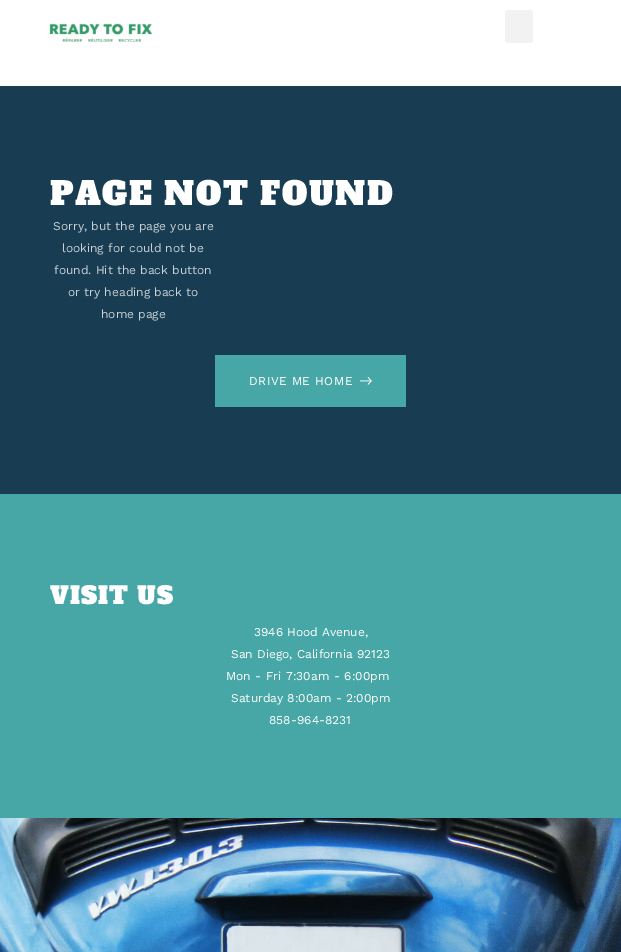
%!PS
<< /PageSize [621 952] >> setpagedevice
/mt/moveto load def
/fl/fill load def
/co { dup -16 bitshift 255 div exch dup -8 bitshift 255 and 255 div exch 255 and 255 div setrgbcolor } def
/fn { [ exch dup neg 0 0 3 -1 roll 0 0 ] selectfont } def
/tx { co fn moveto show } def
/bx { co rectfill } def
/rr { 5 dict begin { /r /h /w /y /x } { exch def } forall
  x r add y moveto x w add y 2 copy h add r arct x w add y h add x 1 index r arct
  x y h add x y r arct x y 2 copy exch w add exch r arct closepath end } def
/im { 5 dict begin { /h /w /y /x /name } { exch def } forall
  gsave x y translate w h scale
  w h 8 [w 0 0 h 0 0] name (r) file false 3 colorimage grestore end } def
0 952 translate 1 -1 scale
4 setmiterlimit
0 0 621 952 16#FFFFFF bx
(media/1.raw) 49 23 103 19 im
16#F2F2F2 co
505 10 28 33 3 rr fl
0 86 621 408 16#183C51 bx
215 355 191 52 16#47A7A6 bx
(media/2.raw) 360 377 12 8 im
0 494 621 324 16#47A7A6 bx
(media/3.raw) 0 818 621 134 im
/AlfaSlabOne-Regular 32 fn
16#FFFFFF co
50 205 mt 1.5 0 (PAGE NOT FOUND) ashow
(Sorry, but the page you are) 53 230 /WorkSans-Regular 12 16#C8D2D7 tx
(looking for could not be) 62 252 /WorkSans-Regular 12 16#C8D2D7 tx
(found. Hit the back button) 54 274 /WorkSans-Regular 12 16#C8D2D7 tx
(or try heading back to) 68 296 /WorkSans-Regular 12 16#C8D2D7 tx
(home page) 101 318 /WorkSans-Regular 12 16#C8D2D7 tx
16#FFFFFF co
249 385 mt .5 0 (DRIVE ME HOME) ashow
/AlfaSlabOne-Regular 24 fn
50 604 mt 1 0 (VISIT US) ashow
(3946 Hood Avenue,) 254 636 /WorkSans-Regular 12 16#FFFFFF tx
(San Diego, California 92123) 231 658 /WorkSans-Regular 12 16#FFFFFF tx
226 680 mt .5 0 32 (Mon - Fri 7:30am - 6:00pm) widthshow
(Saturday 8:00am - 2:00pm) 231 702 /WorkSans-Regular 12 16#FFFFFF tx
(858-964-8231) 269 724 /WorkSans-Regular 12 16#FFFFFF tx
showpage
